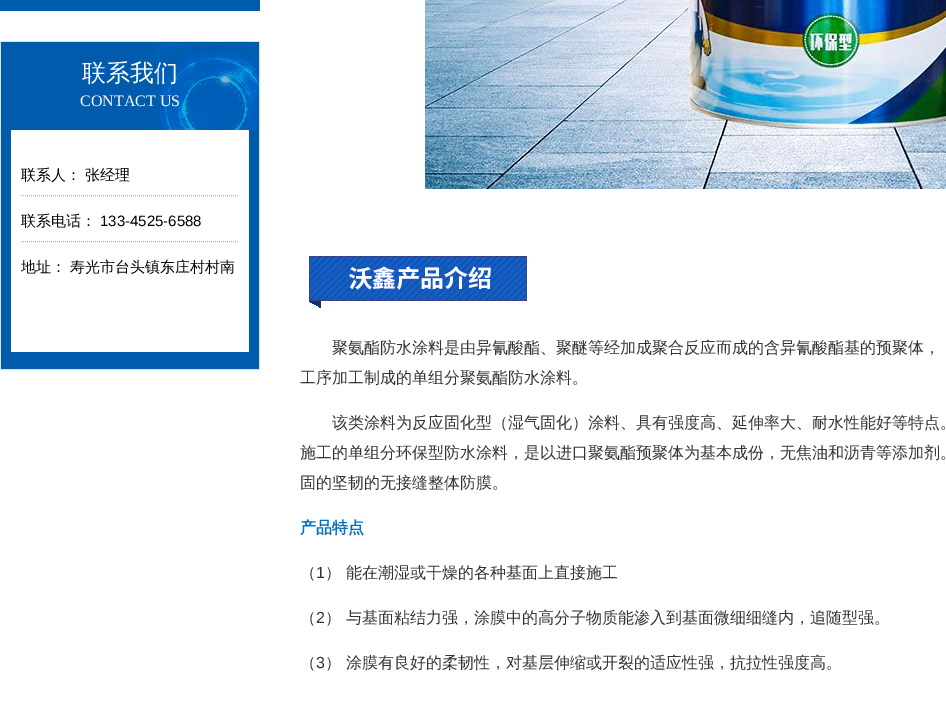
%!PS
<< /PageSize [946 707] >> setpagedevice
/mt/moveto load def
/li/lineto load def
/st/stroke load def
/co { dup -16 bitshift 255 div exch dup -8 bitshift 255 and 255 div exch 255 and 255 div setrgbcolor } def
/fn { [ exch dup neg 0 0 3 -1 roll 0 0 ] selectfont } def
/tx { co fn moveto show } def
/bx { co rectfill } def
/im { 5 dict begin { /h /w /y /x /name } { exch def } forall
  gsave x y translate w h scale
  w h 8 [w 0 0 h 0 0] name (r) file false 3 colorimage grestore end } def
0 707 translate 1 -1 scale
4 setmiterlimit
0 0 946 707 16#FFFFFF bx
0 0 260 11 16#005BAC bx
16#E0E0E0 co
.5 41.5 259 328 rectstroke
(media/1.raw) 1 42 258 88 im
249 130 10 222 16#005BAC bx
11 352 248 17 16#005BAC bx
1 130 10 239 16#005BAC bx
16#B5B5B5 co
[1 1] 0 setdash
21 195.5 mt 239 195.5 li st
21 241.5 mt 239 241.5 li st
(media/2.raw) 425 0 521 189 im
(media/3.raw) 309 256 218 52 im
(联系我们) 82 81 /WenQuanYiZenHei-Medium 24 16#FFFFFF tx
(CONTACT US) 80 106 /LiberationSerif-Regular 16 16#FFFFFF tx
(联系人：) 21 180 /WenQuanYiZenHei-Medium 15 16#000000 tx
(张经理) 85 180 /WenQuanYiZenHei-Medium 15 16#000000 tx
(联系电话：) 21 226 /WenQuanYiZenHei-Medium 15 16#000000 tx
(133-4525-6588) 100 226 /LiberationSans-Regular 15 16#000000 tx
(地址：) 21 272 /WenQuanYiZenHei-Medium 15 16#000000 tx
(寿光市台头镇东庄村村南) 70 272 /WenQuanYiZenHei-Medium 15 16#000000 tx
(聚氨酯防水涂料是由异氰酸酯、聚醚等经加成聚合反应而成的含异氰酸酯基的预聚体，) 332 353 /WenQuanYiZenHei-Medium 16 16#333333 tx
(工序加工制成的单组分聚氨酯防水涂料。) 300 383 /WenQuanYiZenHei-Medium 16 16#333333 tx
(该类涂料为反应固化型（湿气固化）涂料、具有强度高、延伸率大、耐水性能好等特点。) 332 428 /WenQuanYiZenHei-Medium 16 16#333333 tx
(施工的单组分环保型防水涂料，是以进口聚氨酯预聚体为基本成份，无焦油和沥青等添加剂。) 300 458 /WenQuanYiZenHei-Medium 16 16#333333 tx
(固的坚韧的无接缝整体防膜。) 300 488 /WenQuanYiZenHei-Medium 16 16#333333 tx
(产品特点) 300 533 /WenQuanYiZenHei-Bold 16 16#0070C0 tx
(（) 300 578 /WenQuanYiZenHei-Medium 16 16#333333 tx
(1) 316 578 /LiberationSans-Regular 16 16#333333 tx
(） 能在潮湿或干燥的各种基面上直接施工) 325 578 /WenQuanYiZenHei-Medium 16 16#333333 tx
(（) 300 623 /WenQuanYiZenHei-Medium 16 16#333333 tx
(2) 316 623 /LiberationSans-Regular 16 16#333333 tx
(） 与基面粘结力强，涂膜中的高分子物质能渗入到基面微细细缝内，追随型强。) 325 623 /WenQuanYiZenHei-Medium 16 16#333333 tx
(（) 300 668 /WenQuanYiZenHei-Medium 16 16#333333 tx
(3) 316 668 /LiberationSans-Regular 16 16#333333 tx
(） 涂膜有良好的柔韧性，对基层伸缩或开裂的适应性强，抗拉性强度高。) 325 668 /WenQuanYiZenHei-Medium 16 16#333333 tx
showpage
